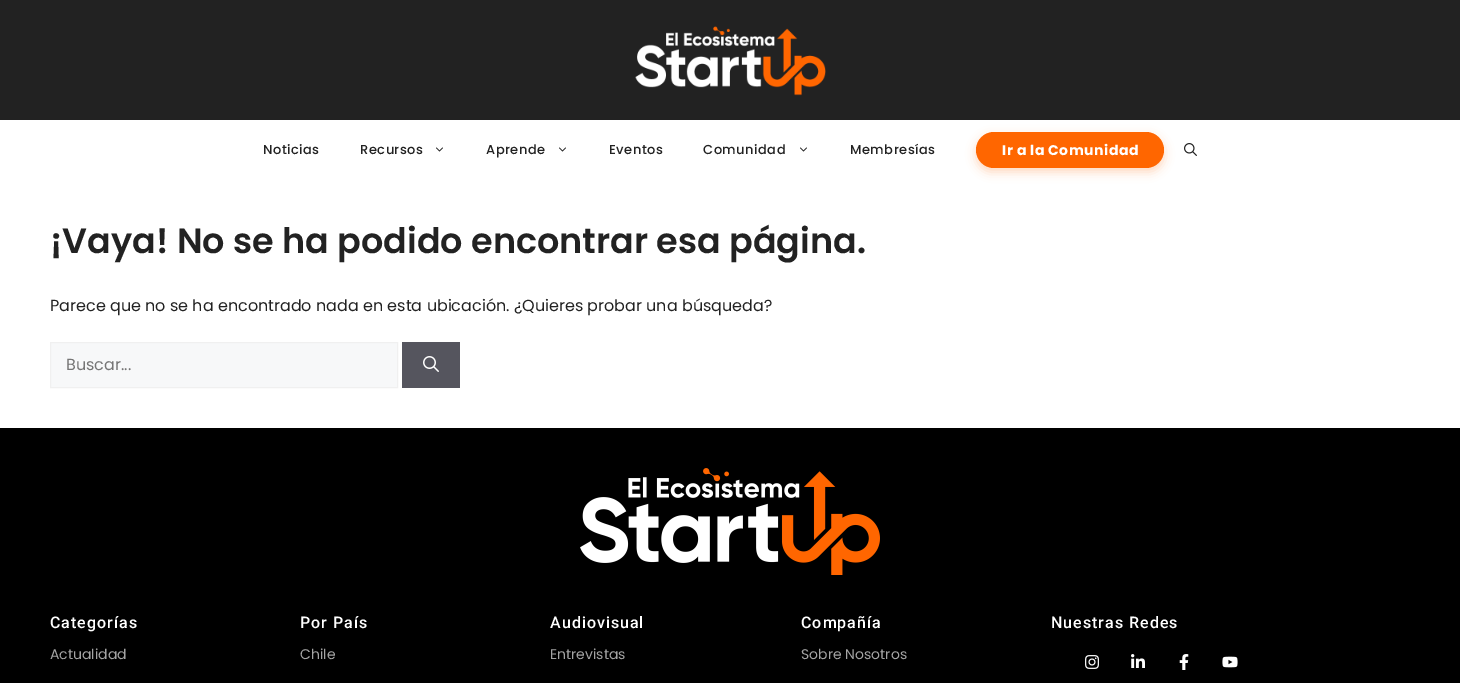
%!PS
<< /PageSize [1460 683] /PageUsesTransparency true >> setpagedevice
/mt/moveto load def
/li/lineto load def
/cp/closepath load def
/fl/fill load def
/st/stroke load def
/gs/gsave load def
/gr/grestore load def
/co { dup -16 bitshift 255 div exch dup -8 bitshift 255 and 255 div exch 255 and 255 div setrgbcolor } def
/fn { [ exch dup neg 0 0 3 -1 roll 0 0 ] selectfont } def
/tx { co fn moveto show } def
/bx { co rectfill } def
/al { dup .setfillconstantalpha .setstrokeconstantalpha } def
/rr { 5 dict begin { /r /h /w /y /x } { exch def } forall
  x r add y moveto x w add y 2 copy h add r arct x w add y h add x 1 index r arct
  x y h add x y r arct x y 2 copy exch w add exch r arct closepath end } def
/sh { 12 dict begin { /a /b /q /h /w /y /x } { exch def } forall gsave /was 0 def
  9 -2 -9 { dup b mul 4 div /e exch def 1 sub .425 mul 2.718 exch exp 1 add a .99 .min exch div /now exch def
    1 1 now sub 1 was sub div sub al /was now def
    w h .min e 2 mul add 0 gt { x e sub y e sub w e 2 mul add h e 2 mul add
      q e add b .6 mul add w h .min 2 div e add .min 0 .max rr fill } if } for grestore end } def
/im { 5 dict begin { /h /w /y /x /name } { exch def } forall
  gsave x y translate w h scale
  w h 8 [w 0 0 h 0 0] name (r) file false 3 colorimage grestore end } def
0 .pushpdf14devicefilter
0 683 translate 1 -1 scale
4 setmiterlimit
0 0 1460 683 16#FFFFFF bx
0 0 1460 120 16#222222 bx
(media/1.raw) 635 26 191 70 im
(media/2.raw) 436 147 7 5 im
(media/2.raw) 559 147 7 5 im
(media/2.raw) 800 147 7 5 im
16#FF6600 co
976 136 188 36 18 5 .25 sh
976 132 188 36 18 rr fl
(media/3.raw) 1184 143 13 13 im
16#F7F8F9 co
50.5 342.5 mt 397.5 342.5 li 397.5 387.5 li 50.5 387.5 li cp gs fl gr
16#F0F0F0 co
st
402 342 58 46 16#55555E bx
(media/4.raw) 423 356 16 16 im
0 428 1460 255 16#000000 bx
(media/5.raw) 580 468 300 107 im
(media/6.raw) 1085 655 14 14 im
(media/7.raw) 1131 654 14 14 im
(media/8.raw) 1179 654 10 16 im
(media/9.raw) 1222 656 16 12 im
/Poppins-Medium 13 fn
16#222222 co
263 154 mt .5 0 (Noticias) ashow
360 154 mt .5 0 (Recursos) ashow
486 154 mt .5 0 (Aprende) ashow
609 154 mt .5 0 (Eventos) ashow
703 154 mt .5 0 (Comunidad) ashow
850 154 mt .5 0 (Membresías) ashow
/Poppins-Bold 14 fn
16#FFFFFF co
1002 155 mt .5 0 (Ir a la Comunidad) ashow
(¡Vaya! No se ha podido encontrar esa página.) 50 253 /Poppins-SemiBold 35 16#222222 tx
(Parece que no se ha encontrado nada en esta ubicación. ¿Quieres probar una búsqueda?) 50 311 /Poppins-Regular 16 16#222222 tx
(Buscar...) 66 370 /Poppins-Regular 16 16#757575 tx
/Roboto-Medium 16 fn
16#FFFFFF co
50 628 mt 1 0 (Categorías) ashow
(Actualidad) 50 659 /Poppins-Regular 14 16#A4A4A4 tx
/Roboto-Medium 16 fn
16#FFFFFF co
300 628 mt 1 0 (Por País) ashow
(Chile) 300 659 /Poppins-Regular 14 16#A4A4A4 tx
/Roboto-Medium 16 fn
16#FFFFFF co
550 628 mt 1 0 (Audiovisual) ashow
(Entrevistas) 550 659 /Poppins-Regular 14 16#A4A4A4 tx
/Roboto-Medium 16 fn
16#FFFFFF co
801 628 mt 1 0 (Compañía) ashow
(Sobre Nosotros) 801 659 /Poppins-Regular 14 16#A4A4A4 tx
/Roboto-Medium 16 fn
16#FFFFFF co
1051 628 mt 1 0 (Nuestras Redes) ashow
.poppdf14devicefilter showpage
